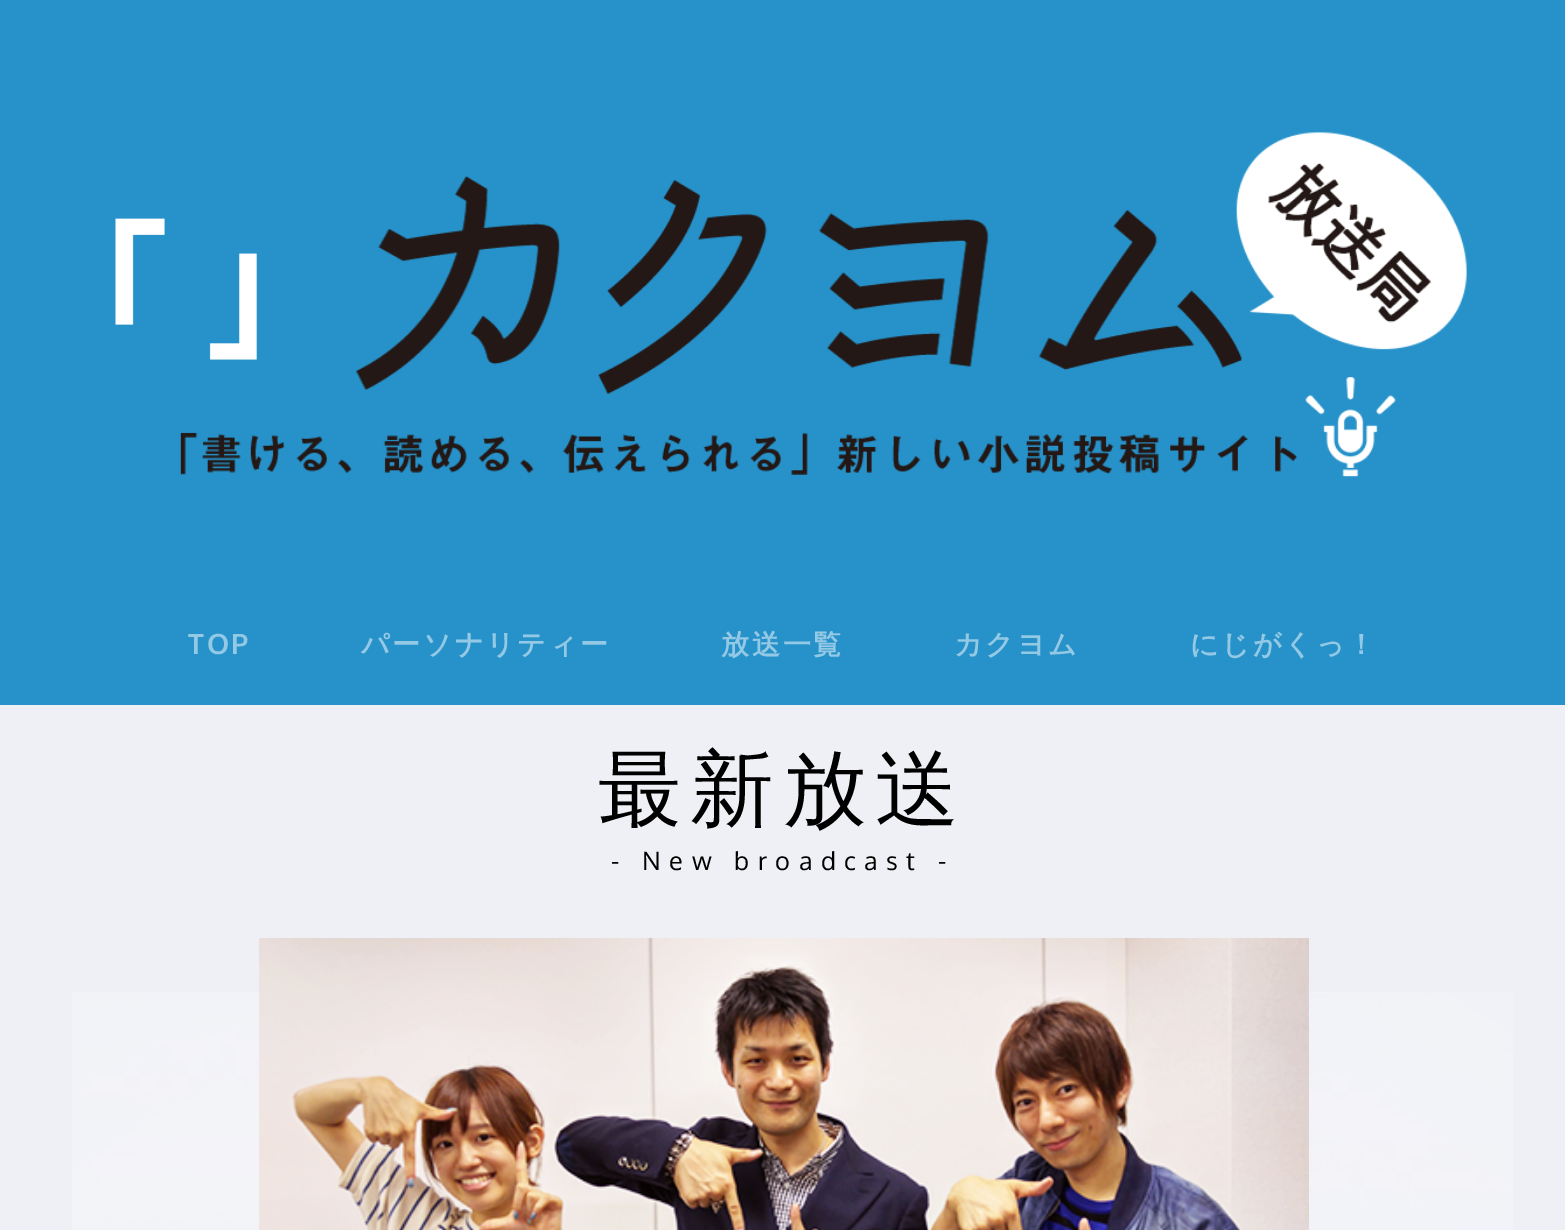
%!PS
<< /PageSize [1565 1230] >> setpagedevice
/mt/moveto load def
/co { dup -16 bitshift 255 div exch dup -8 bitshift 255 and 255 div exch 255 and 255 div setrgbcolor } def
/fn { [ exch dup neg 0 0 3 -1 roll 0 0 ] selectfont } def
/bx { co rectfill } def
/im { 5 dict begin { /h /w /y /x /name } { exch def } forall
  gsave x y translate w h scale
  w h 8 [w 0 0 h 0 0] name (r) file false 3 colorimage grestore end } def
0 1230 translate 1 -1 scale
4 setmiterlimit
0 0 1565 1230 16#2792CA bx
(media/1.raw) 115 132 1352 345 im
0 705 1565 525 16#EFF0F5 bx
(media/2.raw) 72 992 1441 238 im
(media/3.raw) 259 938 1050 292 im
/Oxygen-Bold 28 fn
16#93C9E5 co
188 654 mt 2.75 0 (TOP) ashow
/WenQuanYiZenHei-Bold 28 fn
361 654 mt 2.75 0 (パーソナリティー) ashow
721 654 mt 2.75 0 (放送一覧) ashow
954 654 mt 2.75 0 (カクヨム) ashow
1190 654 mt 2.75 0 (にじがくっ！) ashow
/WenQuanYiZenHei-Medium 84 fn
16#000000 co
598 818 mt 8.4 0 (最新放送) ashow
/Oxygen-Regular 25.25 fn
611 870 mt 8.4 0 (- New broadcast -) ashow
showpage
